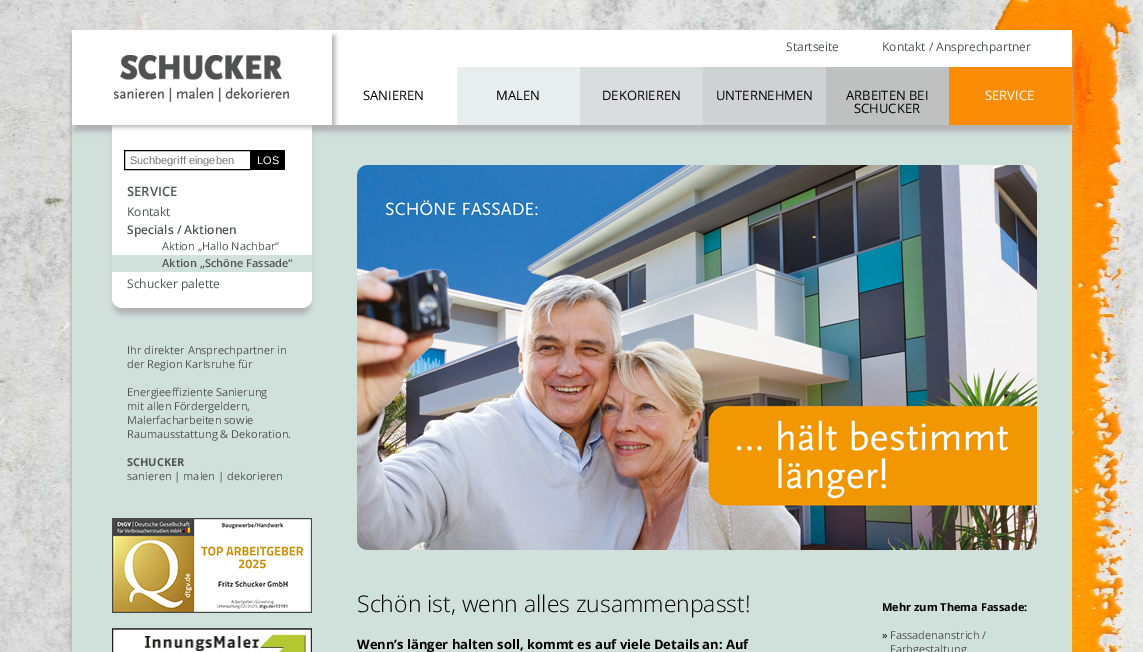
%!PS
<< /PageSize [1143 652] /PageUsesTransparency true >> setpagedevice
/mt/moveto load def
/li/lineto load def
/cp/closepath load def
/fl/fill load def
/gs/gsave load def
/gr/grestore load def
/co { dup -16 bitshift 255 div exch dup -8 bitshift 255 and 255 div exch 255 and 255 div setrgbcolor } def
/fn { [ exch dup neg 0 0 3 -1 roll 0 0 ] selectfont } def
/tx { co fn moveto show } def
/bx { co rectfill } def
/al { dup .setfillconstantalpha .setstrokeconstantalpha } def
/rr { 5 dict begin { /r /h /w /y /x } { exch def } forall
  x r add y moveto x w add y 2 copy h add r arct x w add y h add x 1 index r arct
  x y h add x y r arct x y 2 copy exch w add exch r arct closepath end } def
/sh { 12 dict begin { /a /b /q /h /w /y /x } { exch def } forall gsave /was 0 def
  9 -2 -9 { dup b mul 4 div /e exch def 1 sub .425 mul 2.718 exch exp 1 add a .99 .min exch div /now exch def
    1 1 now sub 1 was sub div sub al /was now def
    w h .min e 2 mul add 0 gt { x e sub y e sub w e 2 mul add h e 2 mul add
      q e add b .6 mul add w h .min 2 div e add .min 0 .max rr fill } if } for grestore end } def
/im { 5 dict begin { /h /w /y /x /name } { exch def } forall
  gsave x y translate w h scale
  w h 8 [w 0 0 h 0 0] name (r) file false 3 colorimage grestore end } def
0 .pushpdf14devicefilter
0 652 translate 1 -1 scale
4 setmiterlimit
0 0 1143 652 16#FFFFFF bx
(media/1.raw) 0 0 1143 652 im
16#B0B0B0 co
71 35 1000 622 0 1.5 1 sh
72 125 1000 527 16#D0E1DC bx
16#B0B0B0 co
74 40 996 91 0 3 1 sh
72 30 1000 95 16#FFFFFF bx
16#B0B0B0 co
114 125 196 189 8 3 1 sh
16#FFFFFF co
112 115 200 193 10 rr fl
gs
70 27 mt 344 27 li 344 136 li 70 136 li cp 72 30 mt 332 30 li 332 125 li 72 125 li cp eoclip newpath
16#B0B0B0 co
79 36 256 91 0 2.5 1 sh
gr
(media/2.raw) 114 55 175 47 im
457 67 123 58 16#E8EEED bx
580 67 123 58 16#D9DDDD bx
703 67 123 58 16#CED2D2 bx
826 67 123 58 16#BFC0C0 bx
949 67 123 58 16#FB8C06 bx
16#000000 co
124.5 150.5 126 19 rectstroke
251 150 34 20 16#000000 bx
112 255 200 17 16#D0E1DC bx
(media/3.raw) 112 518 200 95 im
(media/4.raw) 112 628 200 24 im
(media/5.raw) 357 165 680 385 im
(Startseite) 786 51 /OpenSans-Regular 12 16#515454 tx
(Kontakt / Ansprechpartner) 882 51 /OpenSans-Regular 12 16#515454 tx
(SANIEREN) 363 100 /OpenSans-Regular 13 16#000000 tx
(MALEN) 496 100 /OpenSans-Regular 13 16#000000 tx
(DEKORIEREN) 602 100 /OpenSans-Regular 13 16#000000 tx
(UNTERNEHMEN) 716 100 /OpenSans-Regular 13 16#000000 tx
(ARBEITEN BEI) 846 100 /OpenSans-Regular 13 16#000000 tx
(SCHUCKER) 854 113 /OpenSans-Regular 13 16#000000 tx
(SERVICE) 985 100 /OpenSans-Regular 13 16#FFFFFF tx
gs
130 154 115 12 rectclip
(Suchbegriff eingeben) 130 164 /LiberationSans-Regular 11 16#757575 tx
gr
(LOS) 257 164 /LiberationSans-Regular 11 16#FFFFFF tx
(SERVICE) 127 196 /OpenSans-SemiBold 13 16#515454 tx
(Kontakt) 127 216 /OpenSans-Regular 12 16#515454 tx
(Specials / Aktionen) 127 234 /OpenSans-SemiBold 12 16#515454 tx
(Aktion „Hallo Nachbar“) 162 250 /OpenSans-Regular 11 16#515454 tx
(Aktion „Schöne Fassade“) 162 267 /OpenSans-SemiBold 11 16#515454 tx
(Schucker palette) 127 288 /OpenSans-Regular 12 16#515454 tx
(Ihr direkter Ansprechpartner in) 127 354 /OpenSans-Regular 11 16#515454 tx
(der Region Karlsruhe für) 127 368 /OpenSans-Regular 11 16#515454 tx
(Energieeffiziente Sanierung) 127 396 /OpenSans-Regular 11 16#515454 tx
(mit allen Fördergeldern,) 127 410 /OpenSans-Regular 11 16#515454 tx
(Malerfacharbeiten sowie) 127 424 /OpenSans-Regular 11 16#515454 tx
(Raumausstattung & Dekoration.) 127 438 /OpenSans-Regular 11 16#515454 tx
(SCHUCKER) 127 466 /OpenSans-Bold 11 16#515454 tx
(sanieren | malen | dekorieren) 127 480 /OpenSans-Regular 11 16#515454 tx
(Schön ist, wenn alles zusammenpasst!) 357 612 /OpenSans-Light 23 16#000000 tx
(Wenn’s länger halten soll, kommt es auf viele Details an: Auf) 357 649 /OpenSans-Bold 13 16#000000 tx
(Mehr zum Thema Fassade:) 882 611 /OpenSans-Bold 11 16#000000 tx
(») 882 639 /OpenSans-Regular 11 16#000000 tx
(Fassadenanstrich /) 890 639 /OpenSans-Regular 11 16#515454 tx
(Farbgestaltung) 890 653 /OpenSans-Regular 11 16#515454 tx
.poppdf14devicefilter showpage
